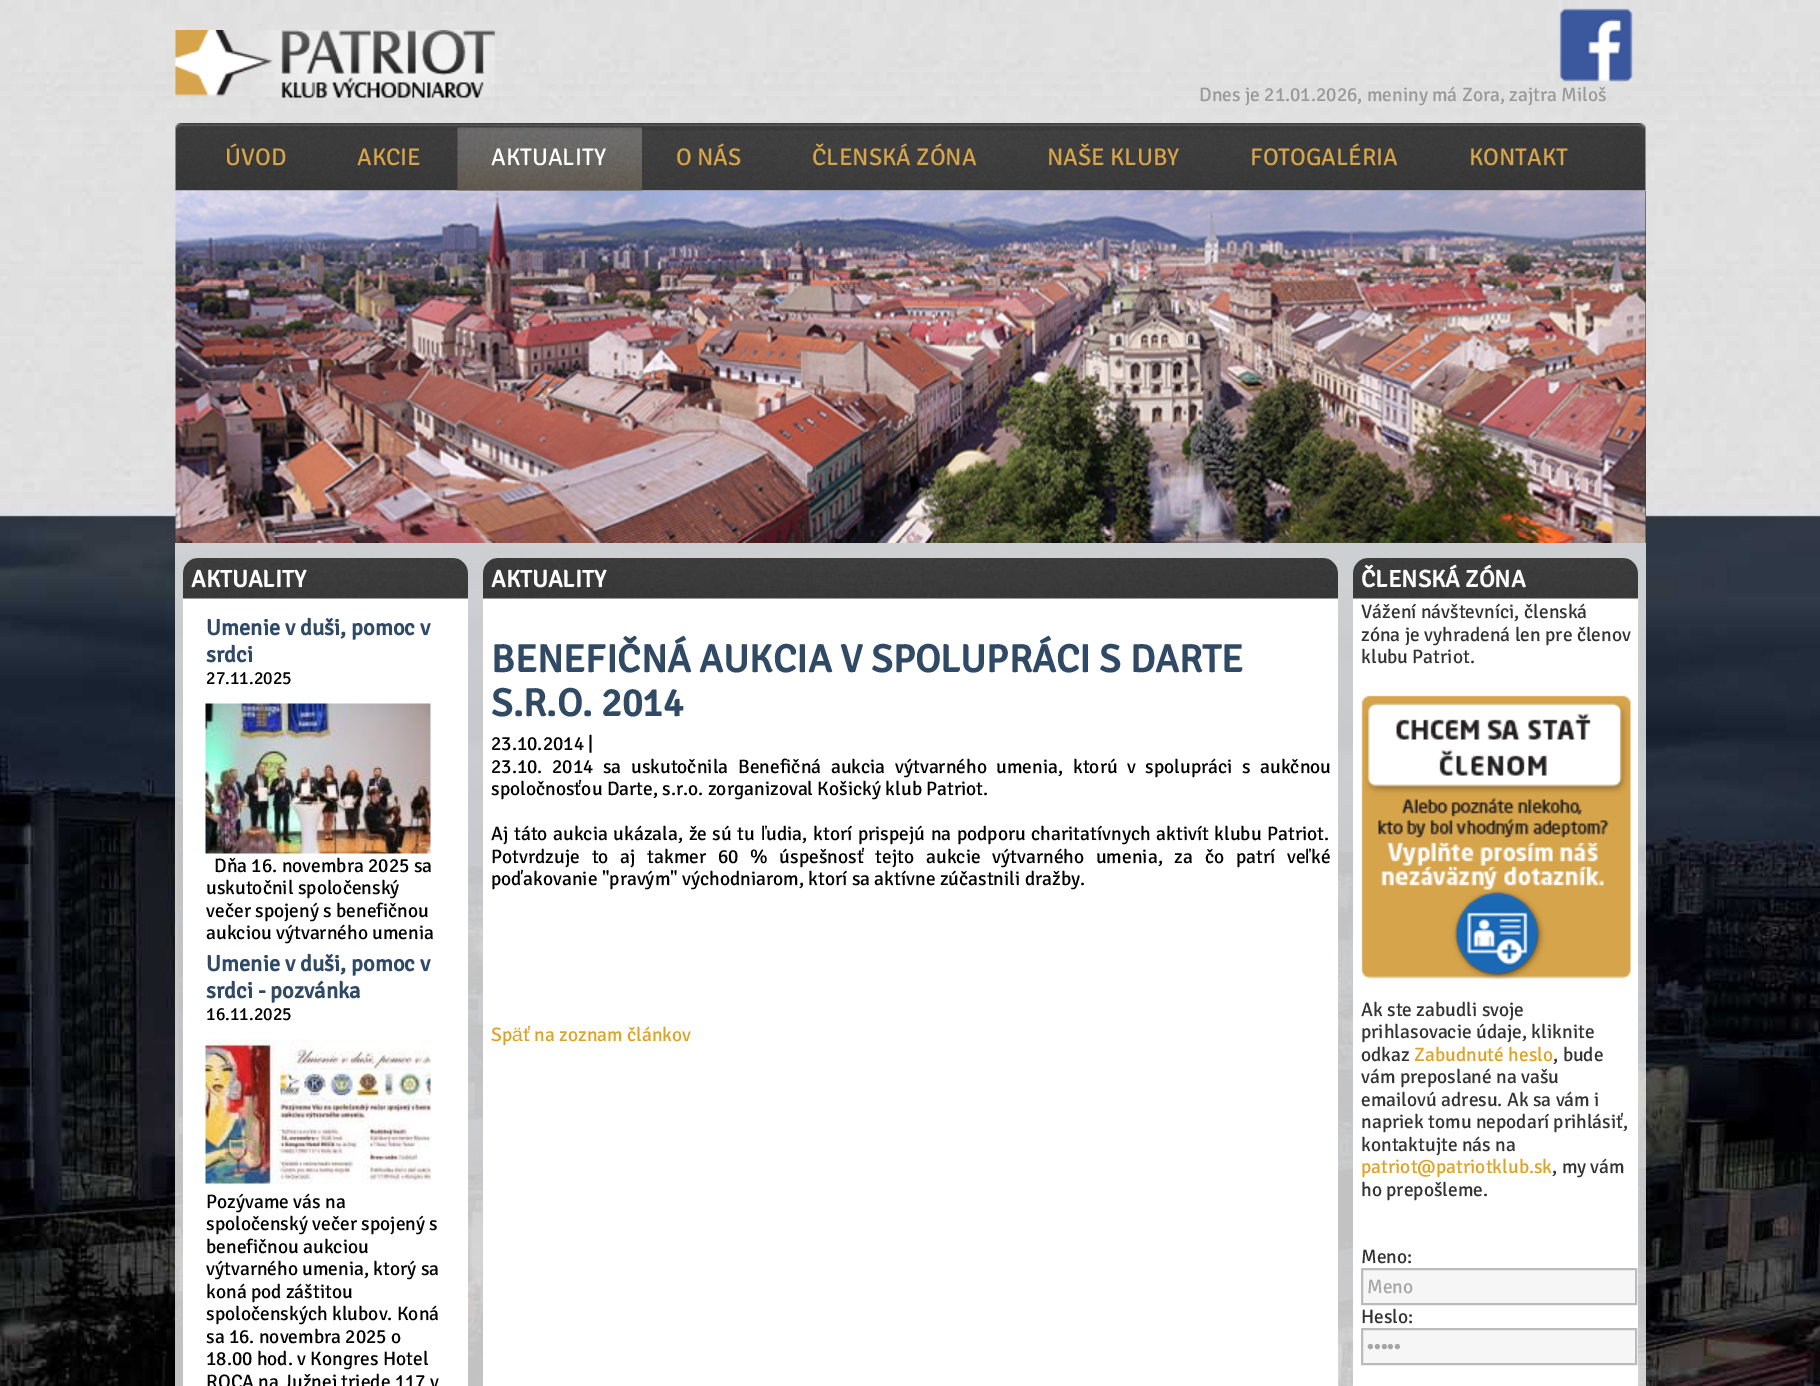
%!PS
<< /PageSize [1820 1386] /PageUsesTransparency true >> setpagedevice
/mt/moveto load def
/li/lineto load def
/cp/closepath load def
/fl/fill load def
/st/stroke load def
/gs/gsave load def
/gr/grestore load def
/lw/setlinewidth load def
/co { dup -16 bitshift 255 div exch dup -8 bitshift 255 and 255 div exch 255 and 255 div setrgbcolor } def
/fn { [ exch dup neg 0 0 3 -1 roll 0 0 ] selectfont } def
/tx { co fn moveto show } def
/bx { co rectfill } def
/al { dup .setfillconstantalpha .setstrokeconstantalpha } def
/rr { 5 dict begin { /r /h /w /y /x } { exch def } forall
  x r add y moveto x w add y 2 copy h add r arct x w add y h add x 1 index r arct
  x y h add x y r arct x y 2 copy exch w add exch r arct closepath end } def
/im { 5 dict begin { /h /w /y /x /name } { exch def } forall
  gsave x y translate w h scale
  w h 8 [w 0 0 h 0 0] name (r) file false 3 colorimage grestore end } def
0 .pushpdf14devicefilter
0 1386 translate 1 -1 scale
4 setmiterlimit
0 0 1820 1386 16#FFFFFF bx
(media/1.raw) 0 0 1820 1386 im
(media/2.raw) 175 30 320 68 im
(media/3.raw) 1559 8 74 74 im
(media/4.raw) 175 123 1471 68 im
1645 191 1 352 16#333333 bx
(media/6.raw) 175 190 1471 353 im
(media/5.raw) 457 123 185 68 im
0.76 al
175 543 1471 843 16#FFFFFF bx
1 al
183 558 285 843 15 rr fl
(media/7.raw) 183 558 285 41 im
(media/8.raw) 205 703 226 151 im
(media/9.raw) 205 1039 226 146 im
483 558 855 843 15 rr fl
(media/10.raw) 483 558 855 41 im
1353 558 285 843 15 rr fl
(media/11.raw) 1353 558 285 41 im
(media/12.raw) 1361 695 270 285 im
16#F6F6F6 co
1362 1269 mt 1636 1269 li 1636 1304 li 1362 1304 li cp gs fl gr
16#BBBBBB co
2 lw
st
16#F6F6F6 co
1362 1329 mt 1636 1329 li 1636 1364 li 1362 1364 li cp gs fl gr
16#BBBBBB co
st
(Dnes je 21.01.2026, meniny má Zora, zajtra Miloš) 1199 101 /Signika-Regular 19.5 16#999999 tx
(ÚVOD) 225 165 /Signika-Regular 24 16#D6A44B tx
(AKCIE) 357 165 /Signika-Regular 24 16#D6A44B tx
(AKTUALITY) 491 165 /Signika-Regular 24 16#FFFFFF tx
(O NÁS) 676 165 /Signika-Regular 24 16#D6A44B tx
(ČLENSKÁ ZÓNA) 812 165 /Signika-Regular 24 16#D6A44B tx
(NAŠE KLUBY) 1047 165 /Signika-Regular 24 16#D6A44B tx
(FOTOGALÉRIA) 1250 165 /Signika-Regular 24 16#D6A44B tx
(KONTAKT) 1469 165 /Signika-Regular 24 16#D6A44B tx
(AKTUALITY) 191 587 /Signika-Bold 24 16#FFFFFF tx
(Umenie v duši, pomoc v) 206 635 /Signika-Bold 22.5 16#304965 tx
(srdci) 206 662 /Signika-Bold 22.5 16#304965 tx
(27.11.2025) 206 684 /Signika-Regular 18 16#000000 tx
(Dňa 16. novembra 2025 sa) 214 872 /Signika-Regular 19.5 16#000000 tx
(uskutočnil spoločenský) 206 894 /Signika-Regular 19.5 16#000000 tx
(večer spojený s benefičnou) 206 917 /Signika-Regular 19.5 16#000000 tx
(aukciou výtvarného umenia) 206 939 /Signika-Regular 19.5 16#000000 tx
(Umenie v duši, pomoc v) 206 971 /Signika-Bold 22.5 16#304965 tx
(srdci - pozvánka) 206 998 /Signika-Bold 22.5 16#304965 tx
(16.11.2025) 206 1020 /Signika-Regular 18 16#000000 tx
(Pozývame vás na) 206 1208 /Signika-Regular 19.5 16#000000 tx
(spoločenský večer spojený s) 206 1230 /Signika-Regular 19.5 16#000000 tx
(benefičnou aukciou) 206 1253 /Signika-Regular 19.5 16#000000 tx
(výtvarného umenia, ktorý sa) 206 1275 /Signika-Regular 19.5 16#000000 tx
(koná pod záštitou) 206 1298 /Signika-Regular 19.5 16#000000 tx
(spoločenských klubov. Koná) 206 1320 /Signika-Regular 19.5 16#000000 tx
(sa 16. novembra 2025 o) 206 1343 /Signika-Regular 19.5 16#000000 tx
(18.00 hod. v Kongres Hotel) 206 1365 /Signika-Regular 19.5 16#000000 tx
(ROCA na Južnej triede 117 v) 206 1388 /Signika-Regular 19.5 16#000000 tx
(AKTUALITY) 491 587 /Signika-Bold 24 16#FFFFFF tx
(BENEFIČNÁ AUKCIA V SPOLUPRÁCI S DARTE) 491 672 /Signika-Bold 39 16#304965 tx
(S.R.O. 2014) 491 716 /Signika-Bold 39 16#304965 tx
(23.10.2014 |) 491 750 /Signika-Regular 19.5 16#000000 tx
491 773 mt 5.25 0 32 (23.10. 2014 sa uskutočnila Benefičná aukcia výtvarného umenia, ktorú v spolupráci s aukčnou) widthshow
(spoločnosťou Darte, s.r.o. zorganizoval Košický klub Patriot.) 491 795 /Signika-Regular 19.5 16#000000 tx
491 840 mt 1.25 0 32 (Aj táto aukcia ukázala, že sú tu) widthshow
(ľ) 761 840 /LiberationSans-Regular 19.5 16#000000 tx
/Signika-Regular 19.5 fn
766 840 mt 1.25 0 32 (udia, ktorí prispejú na podporu charitatívnych aktivít klubu Patriot.) widthshow
491 863 mt 7.4 0 32 (Potvrdzuje to aj takmer 60 % úspešnosť tejto aukcie výtvarného umenia, za čo patrí ve) widthshow
(ľ) 1305 863 /LiberationSans-Regular 19.5 16#000000 tx
(ké) 1311 863 /Signika-Regular 19.5 16#000000 tx
(poďakovanie "pravým" východniarom, ktorí sa aktívne zúčastnili dražby.) 491 885 /Signika-Regular 19.5 16#000000 tx
(Sp) 491 1041 /Signika-Regular 19.5 16#DEA323 tx
(ä) 512 1041 /LiberationSans-Regular 19.5 16#DEA323 tx
(ť na zoznam článkov) 523 1041 /Signika-Regular 19.5 16#DEA323 tx
(ČLENSKÁ ZÓNA) 1361 587 /Signika-Bold 24 16#FFFFFF tx
(Vážení návštevníci, členská) 1361 618 /Signika-Regular 19.5 16#333333 tx
(zóna je vyhradená len pre členov) 1361 641 /Signika-Regular 19.5 16#333333 tx
(klubu Patriot.) 1361 663 /Signika-Regular 19.5 16#333333 tx
(Ak ste zabudli svoje) 1361 1016 /Signika-Regular 19.5 16#333333 tx
(prihlasovacie údaje, kliknite) 1361 1038 /Signika-Regular 19.5 16#333333 tx
(odkaz) 1361 1061 /Signika-Regular 19.5 16#333333 tx
(Zabudnuté heslo) 1414 1061 /Signika-Regular 19.5 16#DEA323 tx
(, bude) 1553 1061 /Signika-Regular 19.5 16#333333 tx
(vám preposlané na vašu) 1361 1083 /Signika-Regular 19.5 16#333333 tx
(emailovú adresu. Ak sa vám i) 1361 1106 /Signika-Regular 19.5 16#333333 tx
(napriek tomu nepodarí prihlásiť,) 1361 1128 /Signika-Regular 19.5 16#333333 tx
(kontaktujte nás na) 1361 1151 /Signika-Regular 19.5 16#333333 tx
(patriot@patriotklub.sk) 1361 1173 /Signika-Regular 19.5 16#DEA323 tx
(, my vám) 1552 1173 /Signika-Regular 19.5 16#333333 tx
(ho prepošleme.) 1361 1196 /Signika-Regular 19.5 16#333333 tx
(Meno:) 1361 1263 /Signika-Regular 19.5 16#333333 tx
(Meno) 1367 1293 /Signika-Regular 19.5 16#A6A6A6 tx
(Heslo:) 1361 1323 /Signika-Regular 19.5 16#333333 tx
(•••••) 1367 1353 /LiberationSans-Regular 19.5 16#A6A6A6 tx
.poppdf14devicefilter showpage
